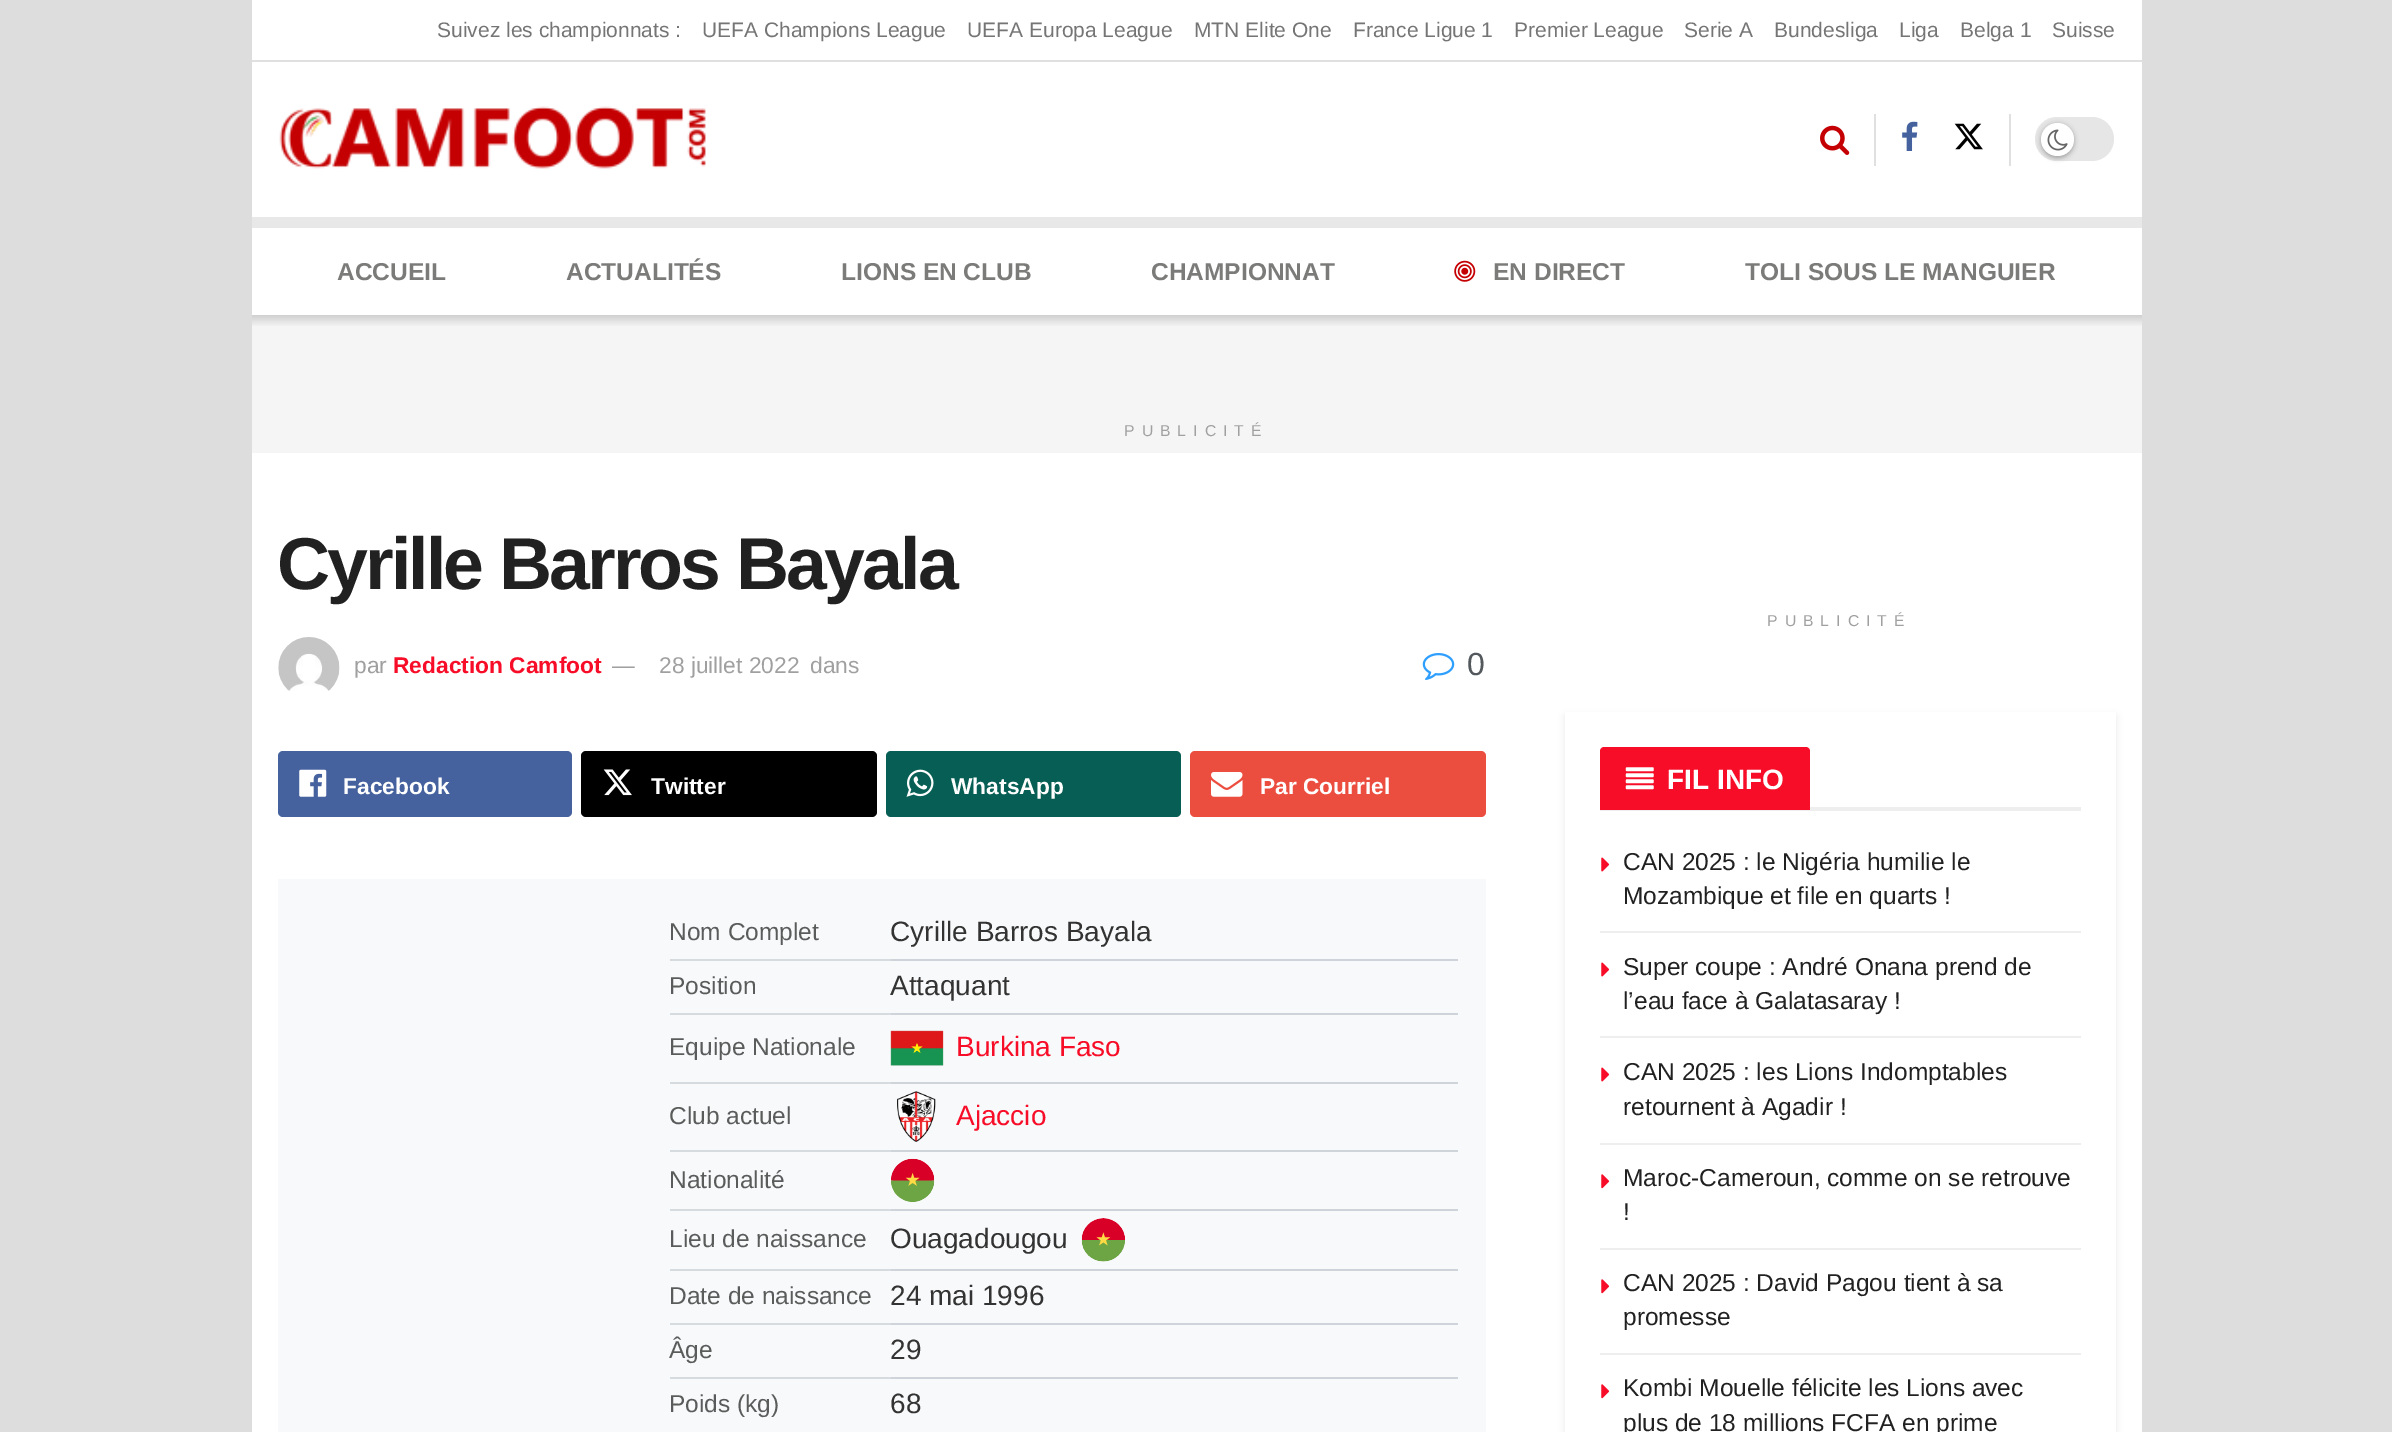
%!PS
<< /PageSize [2392 1432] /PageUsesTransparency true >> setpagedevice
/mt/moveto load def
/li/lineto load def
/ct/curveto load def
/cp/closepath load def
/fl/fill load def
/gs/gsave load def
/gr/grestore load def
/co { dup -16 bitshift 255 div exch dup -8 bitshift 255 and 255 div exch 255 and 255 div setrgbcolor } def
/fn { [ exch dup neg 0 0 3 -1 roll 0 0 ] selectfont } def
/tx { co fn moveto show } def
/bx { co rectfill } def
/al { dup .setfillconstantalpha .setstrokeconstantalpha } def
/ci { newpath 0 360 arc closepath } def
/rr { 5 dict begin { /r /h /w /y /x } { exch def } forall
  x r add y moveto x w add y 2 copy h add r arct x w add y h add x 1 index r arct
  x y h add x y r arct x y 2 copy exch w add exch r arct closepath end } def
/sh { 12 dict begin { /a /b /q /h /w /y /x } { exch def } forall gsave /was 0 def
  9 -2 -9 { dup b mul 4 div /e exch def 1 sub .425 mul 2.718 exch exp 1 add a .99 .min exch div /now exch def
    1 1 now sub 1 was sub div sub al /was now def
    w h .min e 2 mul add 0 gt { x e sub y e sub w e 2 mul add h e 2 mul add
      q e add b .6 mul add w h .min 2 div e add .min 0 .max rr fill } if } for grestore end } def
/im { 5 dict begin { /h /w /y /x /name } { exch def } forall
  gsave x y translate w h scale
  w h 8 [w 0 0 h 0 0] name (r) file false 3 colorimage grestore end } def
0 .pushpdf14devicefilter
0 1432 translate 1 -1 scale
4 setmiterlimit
0 0 2392 1432 16#DDDDDD bx
252 0 1890 60 16#FFFFFF bx
252 60 1890 2 16#E0E0E0 bx
252 62 1890 155 16#FFFFFF bx
(media/1.raw) 279 106 427 63 im
(media/2.raw) 1820 125 30 30 im
1874 114 2 52 16#E0E0E0 bx
(media/3.raw) 1902 121 16 30 im
(media/4.raw) 1954 123 29 27 im
2009 114 2 52 16#E0E0E0 bx
16#E6E6E6 co
2035 117 79 44 22 rr fl
16#000000 co
2041 124 33 34 16.5 2.5 .3 sh
16#FFFFFF co
2057.5 139.5 16.5 ci fl
(media/5.raw) 2047 129 21 22 im
252 228 1890 87 16#FFFFFF bx
252 217 1890 11 16#E8E8E8 bx
(media/6.raw) 1454 260 22 22 im
gs 252 315 mt 2142 315 li 2142 327 li 252 327 li cp clip newpath
<< /ShadingType 2 /ColorSpace /DeviceRGB /Coords [1197 315 1197 327] /Extend [true true] /Function << /FunctionType 2 /Domain [0 1] /C0 [.816 .816 .816] /C1 [.961 .961 .961] /N 1 >> >> shfill gr
252 327 1890 126 16#F5F5F5 bx
252 453 1890 979 16#FFFFFF bx
(media/7.raw) 278 637 62 54 im
(media/8.raw) 1422 653 33 27 im
16#45629F co
278 751 294 66 5 rr fl
(media/9.raw) 299 769 28 28 im
16#000000 co
581 751 296 66 5 rr fl
(media/10.raw) 603 769 29 27 im
16#075E54 co
886 751 295 66 5 rr fl
(media/11.raw) 906 769 28 28 im
16#EB4D3F co
1190 751 296 66 5 rr fl
(media/12.raw) 1211 772 32 25 im
278 879 1208 553 16#F8F9FA bx
670 959 221 2 16#D6DBE0 bx
891 959 567 2 16#CED4DA bx
670 1013 221 2 16#D6DBE0 bx
891 1013 567 2 16#CED4DA bx
670 1082 221 2 16#D6DBE0 bx
891 1082 567 2 16#CED4DA bx
(media/13.raw) 890 1030 54 36 im
670 1150 221 2 16#D6DBE0 bx
891 1150 567 2 16#CED4DA bx
(media/14.raw) 897 1091 39 51 im
670 1209 221 2 16#D6DBE0 bx
891 1209 567 2 16#CED4DA bx
(media/15.raw) 891 1158 44 44 im
670 1269 221 2 16#D6DBE0 bx
891 1269 567 2 16#CED4DA bx
(media/16.raw) 1081 1218 44 44 im
670 1323 221 2 16#D6DBE0 bx
891 1323 567 2 16#CED4DA bx
670 1377 221 2 16#D6DBE0 bx
891 1377 567 2 16#CED4DA bx
16#000000 co
1565 716 551 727 0 3.5 .08 sh
1565 712 551 720 16#FFFFFF bx
1600 807 481 4 16#EEEEEE bx
16#F70D28 co
1604 747 mt 1806 747 li 1808 747 1810 749 1810 751 ct 1810 810 li 1600 810 li 1600 751 li 1600 749 1602 747 1604 747 ct cp fl
(media/17.raw) 1625 767 29 23 im
1600 931 481 2 16#EEEEEE bx
(media/18.raw) 1601 857 9 15 im
1600 1036 481 2 16#EEEEEE bx
(media/18.raw) 1601 962 9 15 im
1600 1143 481 2 16#EEEEEE bx
(media/18.raw) 1601 1067 9 15 im
1600 1248 481 2 16#EEEEEE bx
(media/19.raw) 1601 1174 9 15 im
1600 1353 481 2 16#EEEEEE bx
(media/19.raw) 1601 1279 9 15 im
(media/19.raw) 1601 1384 9 15 im
(Suivez les championnats :) 437 37 /LiberationSans-Regular 21 16#757575 tx
(UEFA Champions League) 702 37 /LiberationSans-Regular 21 16#757575 tx
(UEFA Europa League) 967 37 /LiberationSans-Regular 21 16#757575 tx
(MTN Elite One) 1194 37 /LiberationSans-Regular 21 16#757575 tx
(France Ligue 1) 1353 37 /LiberationSans-Regular 21 16#757575 tx
(Premier League) 1514 37 /LiberationSans-Regular 21 16#757575 tx
(Serie A) 1684 37 /LiberationSans-Regular 21 16#757575 tx
(Bundesliga) 1774 37 /LiberationSans-Regular 21 16#757575 tx
(Liga) 1899 37 /LiberationSans-Regular 21 16#757575 tx
(Belga 1) 1960 37 /LiberationSans-Regular 21 16#757575 tx
(Suisse) 2052 37 /LiberationSans-Regular 21 16#757575 tx
(ACCUEIL) 337 280 /LiberationSans-Bold 24.5 16#7B7B7A tx
(ACTUALITÉS) 566 280 /LiberationSans-Bold 24.5 16#7B7B7A tx
(LIONS EN CLUB) 841 280 /LiberationSans-Bold 24.5 16#7B7B7A tx
(CHAMPIONNAT) 1151 280 /LiberationSans-Bold 24.5 16#7B7B7A tx
(EN DIRECT) 1493 280 /LiberationSans-Bold 24.5 16#7B7B7A tx
(TOLI SOUS LE MANGUIER) 1745 280 /LiberationSans-Bold 24.5 16#7B7B7A tx
/LiberationSans-Regular 15.75 fn
16#A0A0A0 co
1124 436 mt 7 0 (PUBLICITÉ) ashow
/LiberationSans-Bold 73.5 fn
16#212121 co
277 589 mt -2.9 0 (Cyrille Barros Bayala) ashow
(par) 354 673 /LiberationSans-Regular 22.75 16#A0A0A0 tx
(Redaction Camfoot) 393 673 /LiberationSans-Bold 22.75 16#F70D28 tx
(—) 612 673 /LiberationSans-Regular 22.75 16#A0A0A0 tx
(28 juillet 2022) 659 673 /LiberationSans-Regular 22.75 16#A0A0A0 tx
(dans) 810 673 /LiberationSans-Regular 22.75 16#A0A0A0 tx
(0) 1467 675 /LiberationSans-Regular 32 16#53585C tx
(Facebook) 343 794 /LiberationSans-Bold 22.75 16#FFFFFF tx
(Twitter) 651 794 /LiberationSans-Bold 22.75 16#FFFFFF tx
(WhatsApp) 951 794 /LiberationSans-Bold 22.75 16#FFFFFF tx
(Par Courriel) 1260 794 /LiberationSans-Bold 22.75 16#FFFFFF tx
(Nom Complet) 669 940 /LiberationSans-Regular 24.5 16#5A5B5B tx
(Cyrille Barros Bayala) 890 941 /LiberationSans-Regular 28 16#333333 tx
(Position) 669 994 /LiberationSans-Regular 24.5 16#5A5B5B tx
(Attaquant) 890 995 /LiberationSans-Regular 28 16#333333 tx
(Equipe Nationale) 669 1055 /LiberationSans-Regular 24.5 16#5A5B5B tx
(Burkina Faso) 956 1056 /LiberationSans-Regular 28 16#F70D28 tx
(Club actuel) 669 1124 /LiberationSans-Regular 24.5 16#5A5B5B tx
(Ajaccio) 956 1125 /LiberationSans-Regular 28 16#F70D28 tx
(Nationalité) 669 1188 /LiberationSans-Regular 24.5 16#5A5B5B tx
(Lieu de naissance) 669 1247 /LiberationSans-Regular 24.5 16#5A5B5B tx
(Ouagadougou) 890 1248 /LiberationSans-Regular 28 16#333333 tx
(Date de naissance) 669 1304 /LiberationSans-Regular 24.5 16#5A5B5B tx
(24 mai 1996) 890 1305 /LiberationSans-Regular 28 16#333333 tx
(Âge) 669 1358 /LiberationSans-Regular 24.5 16#5A5B5B tx
(29) 890 1359 /LiberationSans-Regular 28 16#333333 tx
(Poids \(kg\)) 669 1412 /LiberationSans-Regular 24.5 16#5A5B5B tx
(68) 890 1413 /LiberationSans-Regular 28 16#333333 tx
/LiberationSans-Regular 15.75 fn
16#A0A0A0 co
1767 626 mt 7 0 (PUBLICITÉ) ashow
(FIL INFO) 1667 789 /LiberationSans-Bold 28 16#FFFFFF tx
(CAN 2025 : le Nigéria humilie le) 1623 870 /LiberationSans-Regular 24.5 16#212121 tx
(Mozambique et file en quarts !) 1623 904 /LiberationSans-Regular 24.5 16#212121 tx
(Super coupe : André Onana prend de) 1623 975 /LiberationSans-Regular 24.5 16#212121 tx
(l’eau face à Galatasaray !) 1623 1009 /LiberationSans-Regular 24.5 16#212121 tx
(CAN 2025 : les Lions Indomptables) 1623 1080 /LiberationSans-Regular 24.5 16#212121 tx
(retournent à Agadir !) 1623 1115 /LiberationSans-Regular 24.5 16#212121 tx
(Maroc-Cameroun, comme on se retrouve) 1623 1186 /LiberationSans-Regular 24.5 16#212121 tx
(!) 1623 1220 /LiberationSans-Regular 24.5 16#212121 tx
(CAN 2025 : David Pagou tient à sa) 1623 1291 /LiberationSans-Regular 24.5 16#212121 tx
(promesse) 1623 1325 /LiberationSans-Regular 24.5 16#212121 tx
(Kombi Mouelle félicite les Lions avec) 1623 1396 /LiberationSans-Regular 24.5 16#212121 tx
(plus de 18 millions FCFA en prime) 1623 1431 /LiberationSans-Regular 24.5 16#212121 tx
.poppdf14devicefilter showpage
